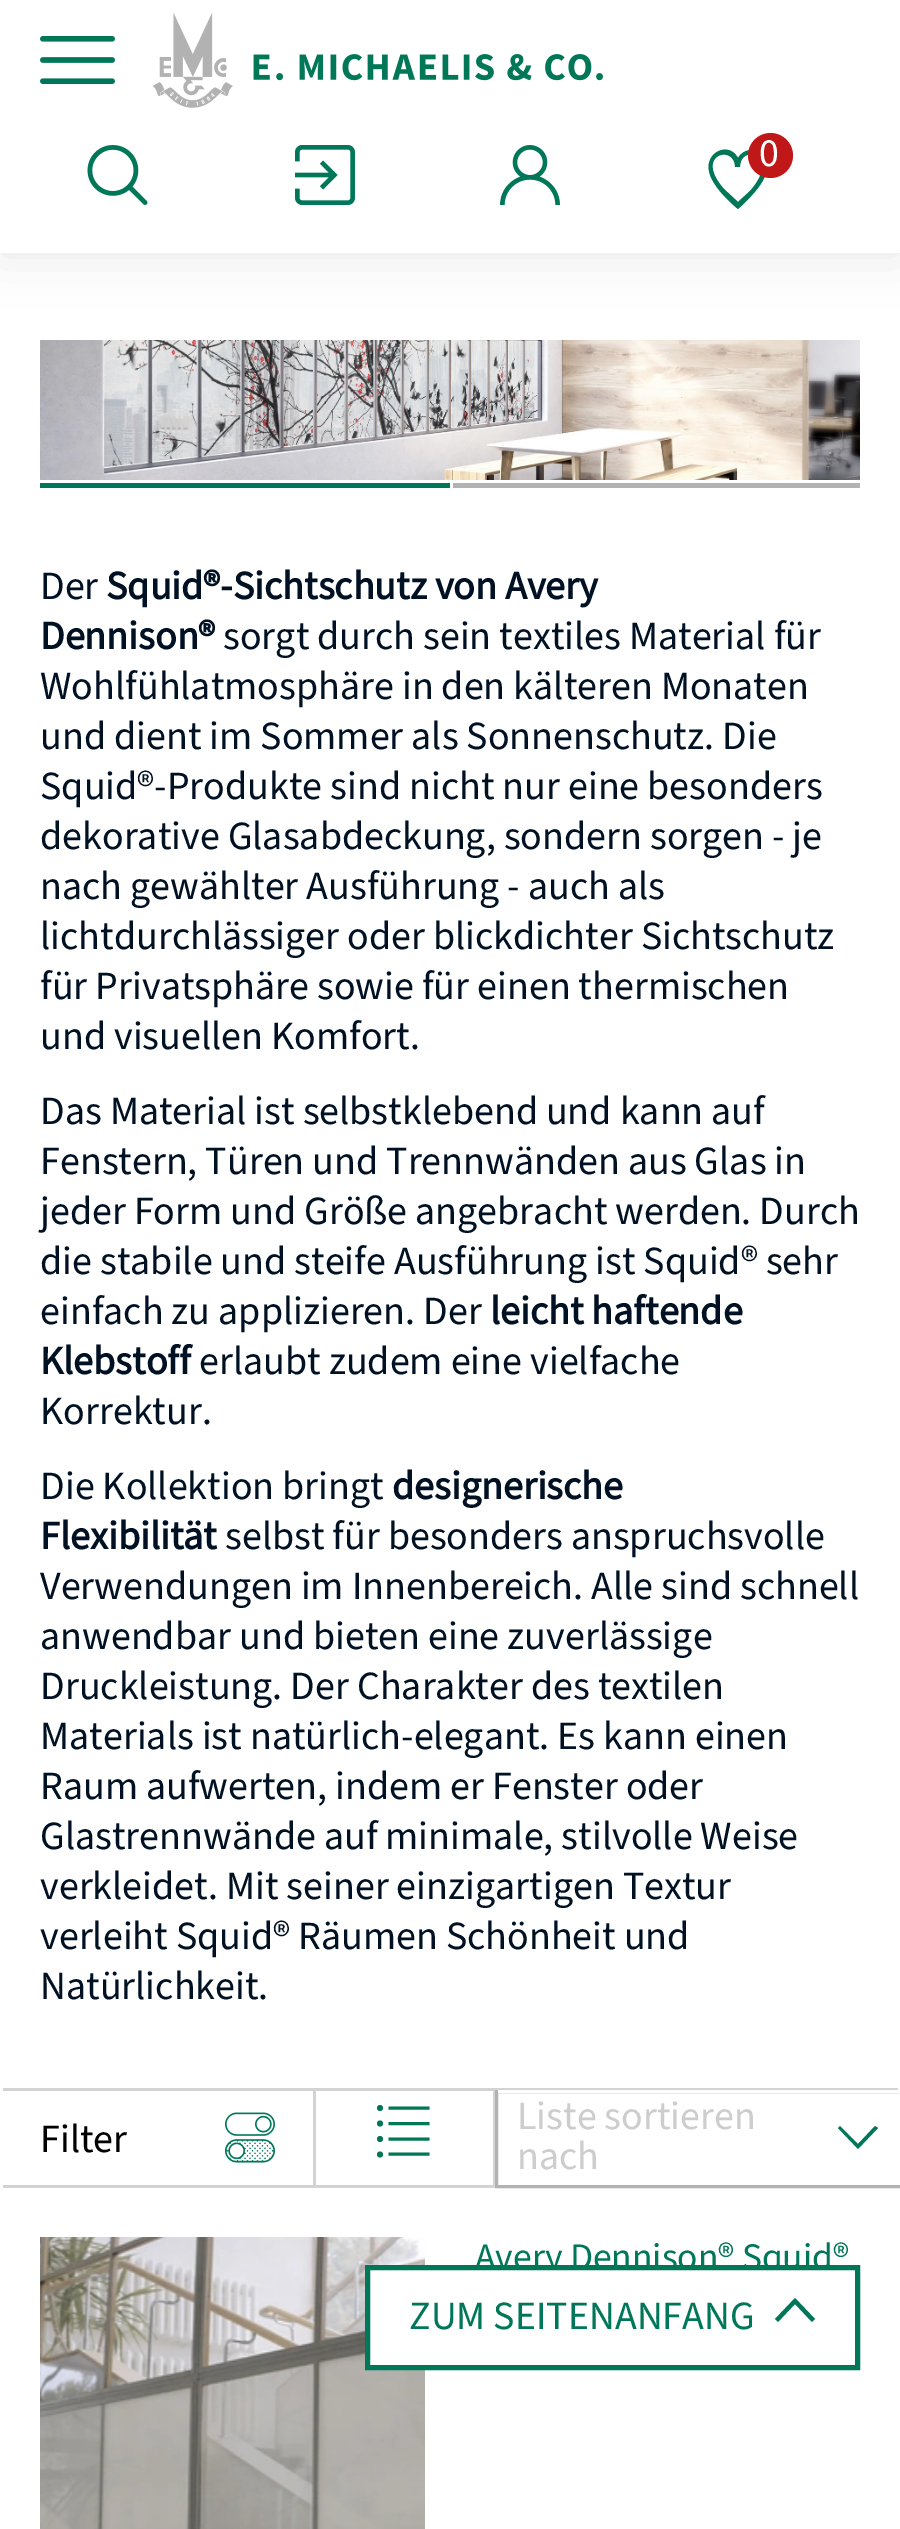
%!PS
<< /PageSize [900 2529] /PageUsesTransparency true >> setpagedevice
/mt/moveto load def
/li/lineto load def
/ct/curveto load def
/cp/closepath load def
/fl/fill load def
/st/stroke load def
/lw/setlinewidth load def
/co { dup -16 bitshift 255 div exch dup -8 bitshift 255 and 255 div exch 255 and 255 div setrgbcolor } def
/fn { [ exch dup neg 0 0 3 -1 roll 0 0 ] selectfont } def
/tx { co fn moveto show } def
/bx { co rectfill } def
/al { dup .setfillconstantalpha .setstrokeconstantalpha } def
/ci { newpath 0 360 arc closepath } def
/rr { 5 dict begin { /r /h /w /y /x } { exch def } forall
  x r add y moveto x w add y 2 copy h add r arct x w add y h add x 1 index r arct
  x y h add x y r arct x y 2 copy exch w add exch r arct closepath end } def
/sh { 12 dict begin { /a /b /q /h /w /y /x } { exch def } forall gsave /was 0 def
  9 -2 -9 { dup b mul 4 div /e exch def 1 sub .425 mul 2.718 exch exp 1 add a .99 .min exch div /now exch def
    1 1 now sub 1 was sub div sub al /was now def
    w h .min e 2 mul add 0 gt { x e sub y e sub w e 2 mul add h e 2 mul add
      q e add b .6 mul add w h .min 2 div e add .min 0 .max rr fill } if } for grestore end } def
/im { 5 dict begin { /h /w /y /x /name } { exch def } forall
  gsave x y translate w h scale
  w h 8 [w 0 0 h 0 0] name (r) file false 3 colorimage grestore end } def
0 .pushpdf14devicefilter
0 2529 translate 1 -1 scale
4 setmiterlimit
0 0 900 2529 16#FFFFFF bx
16#000000 co
0 0 900 253 0 25 .1 sh
0 0 900 253 16#FFFFFF bx
(media/1.raw) 40 36 75 48 im
(media/2.raw) 153 13 450 95 im
(media/3.raw) 87 145 61 60 im
(media/4.raw) 295 145 60 60 im
(media/5.raw) 500 145 60 60 im
16#007758 co
763 155 mt 755 147 743 149 738 158 ct 729 141 705 152 709 171 ct 711 184 727 200 738 209 ct 750 198 778 172 763 155 ct cp 750 191 mt 738 202 li 724 189 li 693 154 735 144 735 167 ct 740 167 li 740 143 782 155 750 191 ct cp fl
16#C01818 co
770.5 155.5 22.5 ci fl
(media/6.raw) 40 340 820 140 im
40 483 410 5 16#007758 bx
453 483 407 5 16#B2B2B2 bx
3 2088 492 3 16#D3D3D3 bx
493 2088 2 100 16#D3D3D3 bx
315 2185 180 3 16#D3D3D3 bx
16#007858 co
380 2108 3 ci fl
3 lw
388.5 2108 mt 429.5 2108 li st
380 2123.5 3 ci fl
388.5 2123.5 mt 429.5 2123.5 li 388.5 2139 mt 429.5 2139 li 388.5 2154 mt 429.5 2154 li st
380 2139 3 ci fl
380 2154.5 3 ci fl
495 2088 403 2 16#D3D3D3 bx
16#B2B2B2 co
496.5 2091.5 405 95 rectstroke
498 2090 402 3 16#FFFFFF bx
16#007758 co
875 2126 mt 858 2144 li 840 2126 li 838 2128 li 858 2149 li 878 2128 li cp fl
313 2088 3 100 16#D3D3D3 bx
3 2185 312 3 16#D3D3D3 bx
(media/7.raw) 225 2112 50 51 im
(media/8.raw) 40 2237 385 292 im
(0) 759 166 /SourceSansPro-Regular 40 16#FFFFFF tx
(Der) 40 599 /SourceSansPro-Regular 40 16#001123 tx
(Squid®-Sichtschutz von Avery) 106 599 /SourceSansPro-Bold 40 16#001123 tx
(Dennison®) 40 649 /SourceSansPro-Bold 40 16#001123 tx
(sorgt durch sein textiles Material für) 223 649 /SourceSansPro-Regular 40 16#001123 tx
(Wohlfühlatmosphäre in den kälteren Monaten) 40 699 /SourceSansPro-Regular 40 16#001123 tx
(und dient im Sommer als Sonnenschutz. Die) 40 749 /SourceSansPro-Regular 40 16#001123 tx
(Squid®-Produkte sind nicht nur eine besonders) 40 799 /SourceSansPro-Regular 40 16#001123 tx
(dekorative Glasabdeckung, sondern sorgen - je) 40 849 /SourceSansPro-Regular 40 16#001123 tx
(nach gewählter Ausführung - auch als) 40 899 /SourceSansPro-Regular 40 16#001123 tx
(lichtdurchlässiger oder blickdichter Sichtschutz) 40 949 /SourceSansPro-Regular 40 16#001123 tx
(für Privatsphäre sowie für einen thermischen) 40 999 /SourceSansPro-Regular 40 16#001123 tx
(und visuellen Komfort.) 40 1049 /SourceSansPro-Regular 40 16#001123 tx
(Das Material ist selbstklebend und kann auf) 40 1124 /SourceSansPro-Regular 40 16#001123 tx
(Fenstern, Türen und Trennwänden aus Glas in) 40 1174 /SourceSansPro-Regular 40 16#001123 tx
(jeder Form und Größe angebracht werden. Durch) 40 1224 /SourceSansPro-Regular 40 16#001123 tx
(die stabile und steife Ausführung ist Squid® sehr) 40 1274 /SourceSansPro-Regular 40 16#001123 tx
(einfach zu applizieren. Der) 40 1324 /SourceSansPro-Regular 40 16#001123 tx
(leicht haftende) 490 1324 /SourceSansPro-Bold 40 16#001123 tx
(Klebstoff) 40 1374 /SourceSansPro-Bold 40 16#001123 tx
(erlaubt zudem eine vielfache) 199 1374 /SourceSansPro-Regular 40 16#001123 tx
(Korrektur.) 40 1424 /SourceSansPro-Regular 40 16#001123 tx
(Die Kollektion bringt) 40 1499 /SourceSansPro-Regular 40 16#001123 tx
(designerische) 392 1499 /SourceSansPro-Bold 40 16#001123 tx
(Flexibilität) 40 1549 /SourceSansPro-Bold 40 16#001123 tx
(selbst für besonders anspruchsvolle) 225 1549 /SourceSansPro-Regular 40 16#001123 tx
(Verwendungen im Innenbereich. Alle sind schnell) 40 1599 /SourceSansPro-Regular 40 16#001123 tx
(anwendbar und bieten eine zuverlässige) 40 1649 /SourceSansPro-Regular 40 16#001123 tx
(Druckleistung. Der Charakter des textilen) 40 1699 /SourceSansPro-Regular 40 16#001123 tx
(Materials ist natürlich-elegant. Es kann einen) 40 1749 /SourceSansPro-Regular 40 16#001123 tx
(Raum aufwerten, indem er Fenster oder) 40 1799 /SourceSansPro-Regular 40 16#001123 tx
(Glastrennwände auf minimale, stilvolle Weise) 40 1849 /SourceSansPro-Regular 40 16#001123 tx
(verkleidet. Mit seiner einzigartigen Textur) 40 1899 /SourceSansPro-Regular 40 16#001123 tx
(verleiht Squid® Räumen Schönheit und) 40 1949 /SourceSansPro-Regular 40 16#001123 tx
(Natürlichkeit.) 40 1999 /SourceSansPro-Regular 40 16#001123 tx
(Liste sortieren) 517 2129 /SourceSansPro-Regular 40 16#CDCDCD tx
(nach) 517 2169 /SourceSansPro-Regular 40 16#CDCDCD tx
(Filter) 40 2152 /SourceSansPro-Regular 40 16#000000 tx
(Avery Dennison® Squid®) 475 2269 /SourceSansPro-Regular 37.5 16#007758 tx
370 2270 410 95 16#FFFFFF bx
16#007758 co
5 lw
367.5 2267.5 490 100 rectstroke
795 2298 mt 775 2319 li 778 2322 li 795 2304 li 812 2322 li 815 2319 li cp fl
(ZUM SEITENANFANG) 409 2329 /SourceSansPro-Regular 40 16#007758 tx
.poppdf14devicefilter showpage
